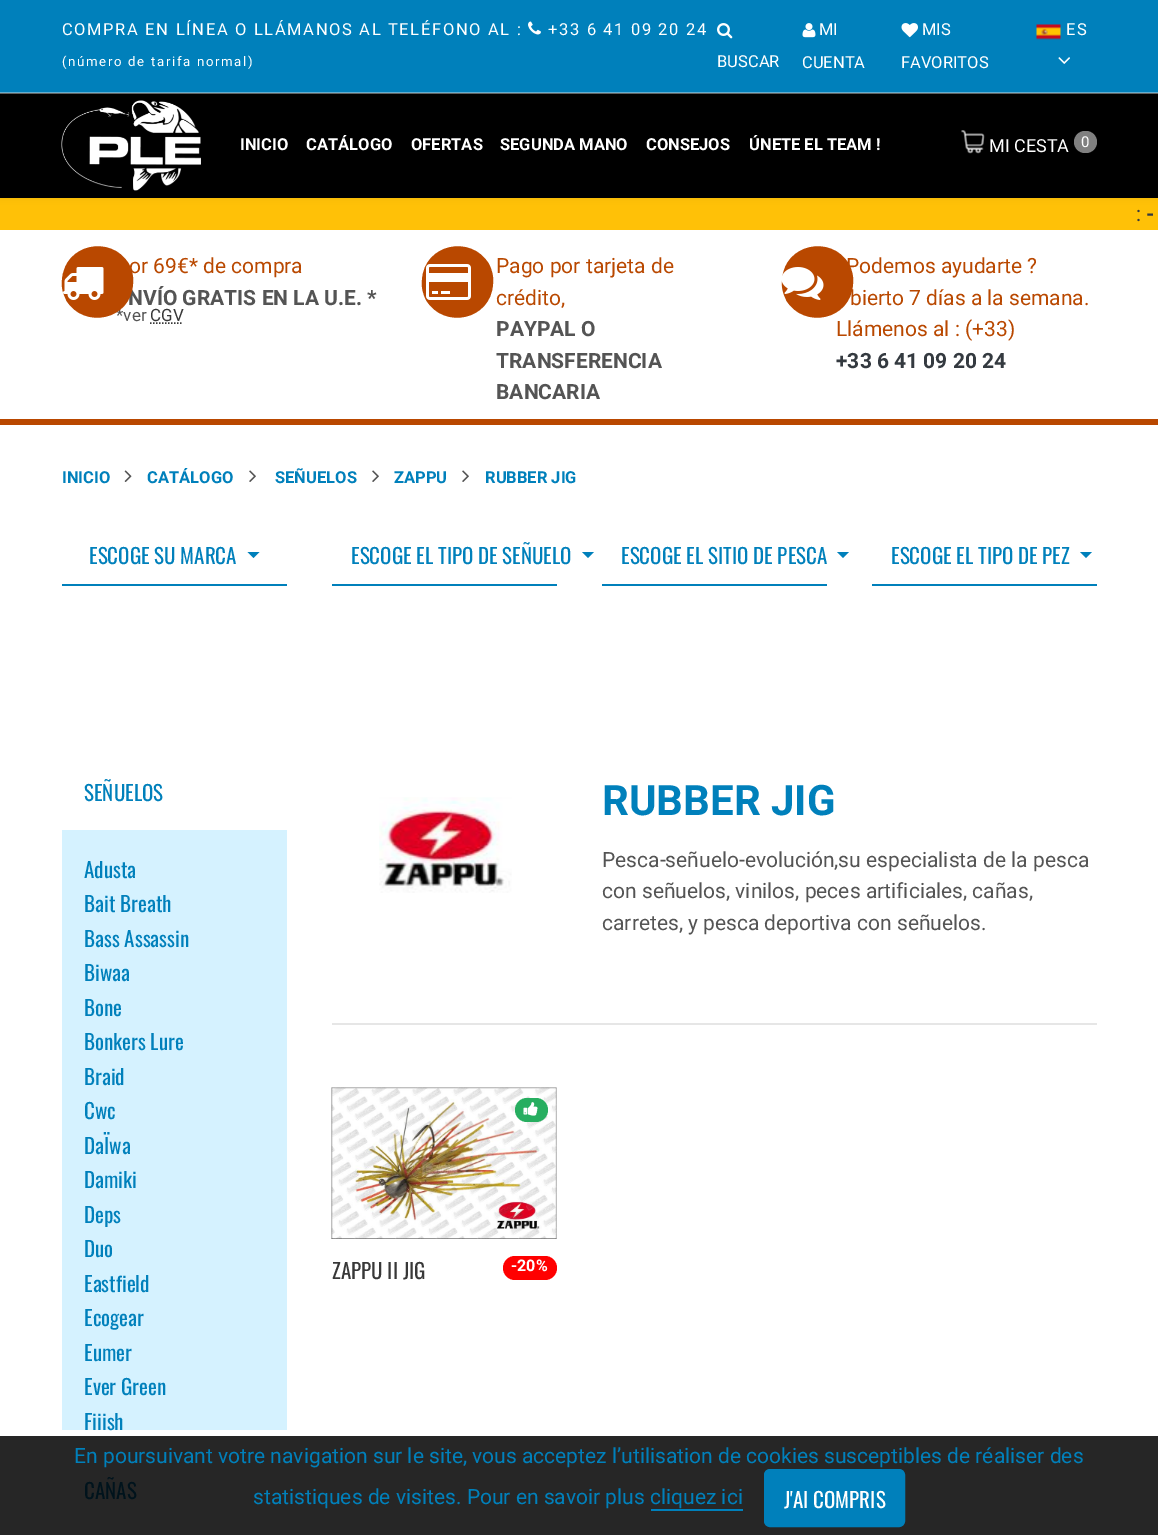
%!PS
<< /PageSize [1158 1535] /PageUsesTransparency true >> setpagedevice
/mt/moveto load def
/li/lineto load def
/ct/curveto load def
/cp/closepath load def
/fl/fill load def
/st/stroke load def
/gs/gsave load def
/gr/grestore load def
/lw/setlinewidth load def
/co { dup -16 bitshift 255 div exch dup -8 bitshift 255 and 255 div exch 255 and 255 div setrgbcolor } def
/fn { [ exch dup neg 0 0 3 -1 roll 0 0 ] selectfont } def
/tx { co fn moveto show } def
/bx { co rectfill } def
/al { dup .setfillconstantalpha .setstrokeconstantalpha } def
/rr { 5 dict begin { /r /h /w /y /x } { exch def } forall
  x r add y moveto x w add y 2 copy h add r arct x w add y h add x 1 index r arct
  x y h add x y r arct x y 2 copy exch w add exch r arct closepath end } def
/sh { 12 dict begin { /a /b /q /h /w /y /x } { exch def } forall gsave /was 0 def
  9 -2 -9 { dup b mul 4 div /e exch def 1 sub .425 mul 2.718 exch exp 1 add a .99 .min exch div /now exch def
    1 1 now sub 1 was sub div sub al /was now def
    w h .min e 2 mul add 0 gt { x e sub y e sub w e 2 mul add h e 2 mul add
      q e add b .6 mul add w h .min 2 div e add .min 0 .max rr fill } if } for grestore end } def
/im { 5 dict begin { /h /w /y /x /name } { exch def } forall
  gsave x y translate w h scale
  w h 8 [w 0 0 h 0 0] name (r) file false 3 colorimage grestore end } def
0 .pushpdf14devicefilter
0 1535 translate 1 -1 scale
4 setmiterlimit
0 0 1158 1535 16#FFFFFF bx
0 1436 1158 99 16#262626 bx
0 198 1158 32 16#FFC107 bx
16#000000 co
0 0 1158 198 0 4 .05 sh
0 94 1158 104 16#000000 bx
0 93 1158 1 16#636260 bx
0 0 1158 92 16#0080BB bx
0 92 1158 1 16#63AED0 bx
(media/1.raw) 528 21 13 14 im
(media/2.raw) 802 23 14 15 im
(media/3.raw) 901 23 17 15 im
(media/4.raw) 1036 24 25 16 im
(media/5.raw) 1058 57 12 7 im
(media/6.raw) 717 23 16 16 im
(media/7.raw) 61 100 140 91 im
(media/8.raw) 961 130 24 24 im
16#808080 co
1074 131 23 22 11 rr fl
0 419 1158 6 16#B94800 bx
16#383838 co
1.5 lw
[1.5 1.5] 0 setdash
150 323 mt 183 323 li st
16#B94800 co
489 264 mt 492 270 494 277 493 284 ct 491 320 444 330 426 300 ct 423 294 421 287 422 280 ct 424 244 471 234 489 264 ct cp fl
(media/10.raw) 426 264 45 36 im
849 264 mt 852 270 854 277 853 284 ct 851 320 804 330 786 300 ct 783 294 781 287 782 280 ct 784 244 831 234 849 264 ct cp fl
(media/11.raw) 781 267 43 33 im
(media/12.raw) 124 470 8 12 im
(media/13.raw) 249 470 7 12 im
(media/13.raw) 372 470 7 12 im
(media/13.raw) 462 470 7 12 im
62 584 225 2 16#0080BB bx
247.5 552 mt 259.5 552 li 253.5 558 li cp fl
332 584 225 2 16#0080BB bx
582 552 mt 594 552 li 588 558 li cp fl
602 584 225 2 16#0080BB bx
837 552 mt 849 552 li 843 558 li cp fl
872 584 225 2 16#0080BB bx
1080 552 mt 1092 552 li 1086 558 li cp fl
62 830 225 600 16#D5F2FF bx
(media/14.raw) 379 797 133 96 im
332 1023 765 2 16#E6E6E6 bx
(media/15.raw) 331 1087 226 152 im
16#27AE60 co
515 1098 33 24 12 rr fl
(media/16.raw) 523 1102 15 14 im
16#FF0000 co
503 1256 54 24 12 rr fl
16#0080BB co
765 1470 139 56 5 rr gs fl gr
2 lw
[] 0 setdash
st
651 1509 92 2 16#0080BB bx
/Roboto-Regular 16.5 fn
16#FFFFFF co
62 35 mt 1.65 0 (COMPRA EN LÍNEA O LLÁMANOS AL TELÉFONO AL :) ashow
548 35 mt 1.65 0 (+33 6 41 09 20 24) ashow
/Roboto-Regular 13.25 fn
62 66 mt 1.65 0 (\(número de tarifa normal\)) ashow
(MI) 819 35 /Roboto-Regular 16.5 16#FFFFFF tx
(CUENTA) 802 68 /Roboto-Regular 16.5 16#FFFFFF tx
(MIS) 922 35 /Roboto-Regular 16.5 16#FFFFFF tx
(FAVORITOS) 901 68 /Roboto-Regular 16.5 16#FFFFFF tx
1066 35 mt 1.65 0 (ES) ashow
(BUSCAR) 717 67 /Roboto-Regular 16.5 16#FFFFFF tx
(INICIO) 240 150 /Roboto-Bold 16.5 16#FFFFFF tx
(CATÁLOGO) 306 150 /Roboto-Bold 16.5 16#FFFFFF tx
(OFERTAS) 411 150 /Roboto-Bold 16.5 16#FFFFFF tx
(SEGUNDA MANO) 500 150 /Roboto-Bold 16.5 16#FFFFFF tx
(CONSEJOS) 646 150 /Roboto-Bold 16.5 16#FFFFFF tx
(ÚNETE EL TEAM !) 749 150 /Roboto-Bold 16.5 16#FFFFFF tx
(MI CESTA) 989 152 /Roboto-Regular 18 16#FFFFFF tx
(0) 1081 147 /Roboto-Regular 15 16#FFFFFF tx
(:) 1136 221 /Roboto-Regular 21 16#343A40 tx
(-) 1146 221 /Roboto-Bold 21 16#343A40 tx
(or 69€* de compra) 129 273 /Roboto-Regular 21 16#B94800 tx
(NVÍO GRATIS EN LA U.E. *) 128 305 /Roboto-Bold 21 16#545454 tx
(*ver) 116 321 /Roboto-Regular 17 16#545454 tx
16#B94800 co
129 264 mt 132 270 134 277 133 284 ct 131 320 84 330 66 300 ct 63 294 61 287 62 280 ct 64 244 111 234 129 264 ct cp fl
(media/9.raw) 63 267 41 33 im
(CGV) 150 321 /Roboto-Regular 17 16#383838 tx
(Pago por tarjeta de) 496 273 /Roboto-Regular 21 16#B94800 tx
(crédito,) 496 305 /Roboto-Regular 21 16#B94800 tx
(PAYPAL O) 496 336 /Roboto-Bold 21 16#545454 tx
(TRANSFERENCIA) 496 368 /Roboto-Bold 21 16#545454 tx
(BANCARIA) 496 399 /Roboto-Bold 21 16#545454 tx
(Podemos ayudarte ?) 846 273 /Roboto-Regular 21 16#B94800 tx
(bierto 7 días a la semana.) 850 305 /Roboto-Regular 21 16#B94800 tx
(Llámenos al : \(+33\)) 836 336 /Roboto-Regular 21 16#B94800 tx
(+33 6 41 09 20 24) 836 368 /Roboto-Bold 21 16#343A40 tx
(INICIO) 62 483 /Roboto-Bold 16.5 16#0080BB tx
(CATÁLOGO) 147 483 /Roboto-Bold 16.5 16#0080BB tx
(SEÑUELOS) 275 483 /Roboto-Bold 16.5 16#0080BB tx
(ZAPPU) 394 483 /Roboto-Bold 16.5 16#0080BB tx
(RUBBER JIG) 485 483 /Roboto-Bold 16.5 16#0080BB tx
(ESCOGE SU MARCA) 89 564 /Oswald-Regular 21 16#0080BB tx
(ESCOGE EL TIPO DE SEÑUELO) 351 564 /Oswald-Regular 21 16#0080BB tx
(ESCOGE EL SITIO DE PESCA) 621 564 /Oswald-Regular 21 16#0080BB tx
(ESCOGE EL TIPO DE PEZ) 891 564 /Oswald-Regular 21 16#0080BB tx
(SEÑUELOS) 84 801 /Oswald-Regular 21 16#0080BB tx
(Adusta) 84 878 /Oswald-Regular 21 16#0080BB tx
(Bait Breath) 84 912 /Oswald-Regular 21 16#0080BB tx
(Bass Assassin) 84 947 /Oswald-Regular 21 16#0080BB tx
(Biwaa) 84 981 /Oswald-Regular 21 16#0080BB tx
(Bone) 84 1016 /Oswald-Regular 21 16#0080BB tx
(Bonkers Lure) 84 1050 /Oswald-Regular 21 16#0080BB tx
(Braid) 84 1085 /Oswald-Regular 21 16#0080BB tx
(Cwc) 84 1119 /Oswald-Regular 21 16#0080BB tx
(DaÏwa) 84 1154 /Oswald-Regular 21 16#0080BB tx
(Damiki) 84 1188 /Oswald-Regular 21 16#0080BB tx
(Deps) 84 1223 /Oswald-Regular 21 16#0080BB tx
(Duo) 84 1257 /Oswald-Regular 21 16#0080BB tx
(Eastfield) 84 1292 /Oswald-Regular 21 16#0080BB tx
(Ecogear) 84 1326 /Oswald-Regular 21 16#0080BB tx
(Eumer) 84 1361 /Oswald-Regular 21 16#0080BB tx
(Ever Green) 84 1395 /Oswald-Regular 21 16#0080BB tx
(Fiiish) 84 1430 /Oswald-Regular 21 16#0080BB tx
(CAÑAS) 84 1499 /Oswald-Regular 21 16#00131C tx
(RUBBER JIG) 602 815 /Roboto-Bold 42 16#0080BB tx
(Pesca-señuelo-evolución,su especialista de la pesca) 602 867 /Roboto-Regular 21 16#545454 tx
(con señuelos, vinilos, peces artificiales, cañas,) 602 898 /Roboto-Regular 21 16#545454 tx
(carretes, y pesca deportiva con señuelos.) 602 930 /Roboto-Regular 21 16#545454 tx
(ZAPPU II JIG) 332 1279 /Oswald-Regular 21 16#383838 tx
(-20%) 511 1271 /Roboto-Bold 16 16#FFFFFF tx
(En poursuivant votre navigation sur le site, vous acceptez l’utilisation de cookies susceptibles de réaliser des) 74 1463 /Roboto-Regular 21 16#0080BB tx
(statistiques de visites. Pour en savoir plus cliquez ici) 253 1504 /Roboto-Regular 21 16#0080BB tx
(J'AI COMPRIS) 784 1508 /Oswald-Regular 21 16#FFFFFF tx
.poppdf14devicefilter showpage
